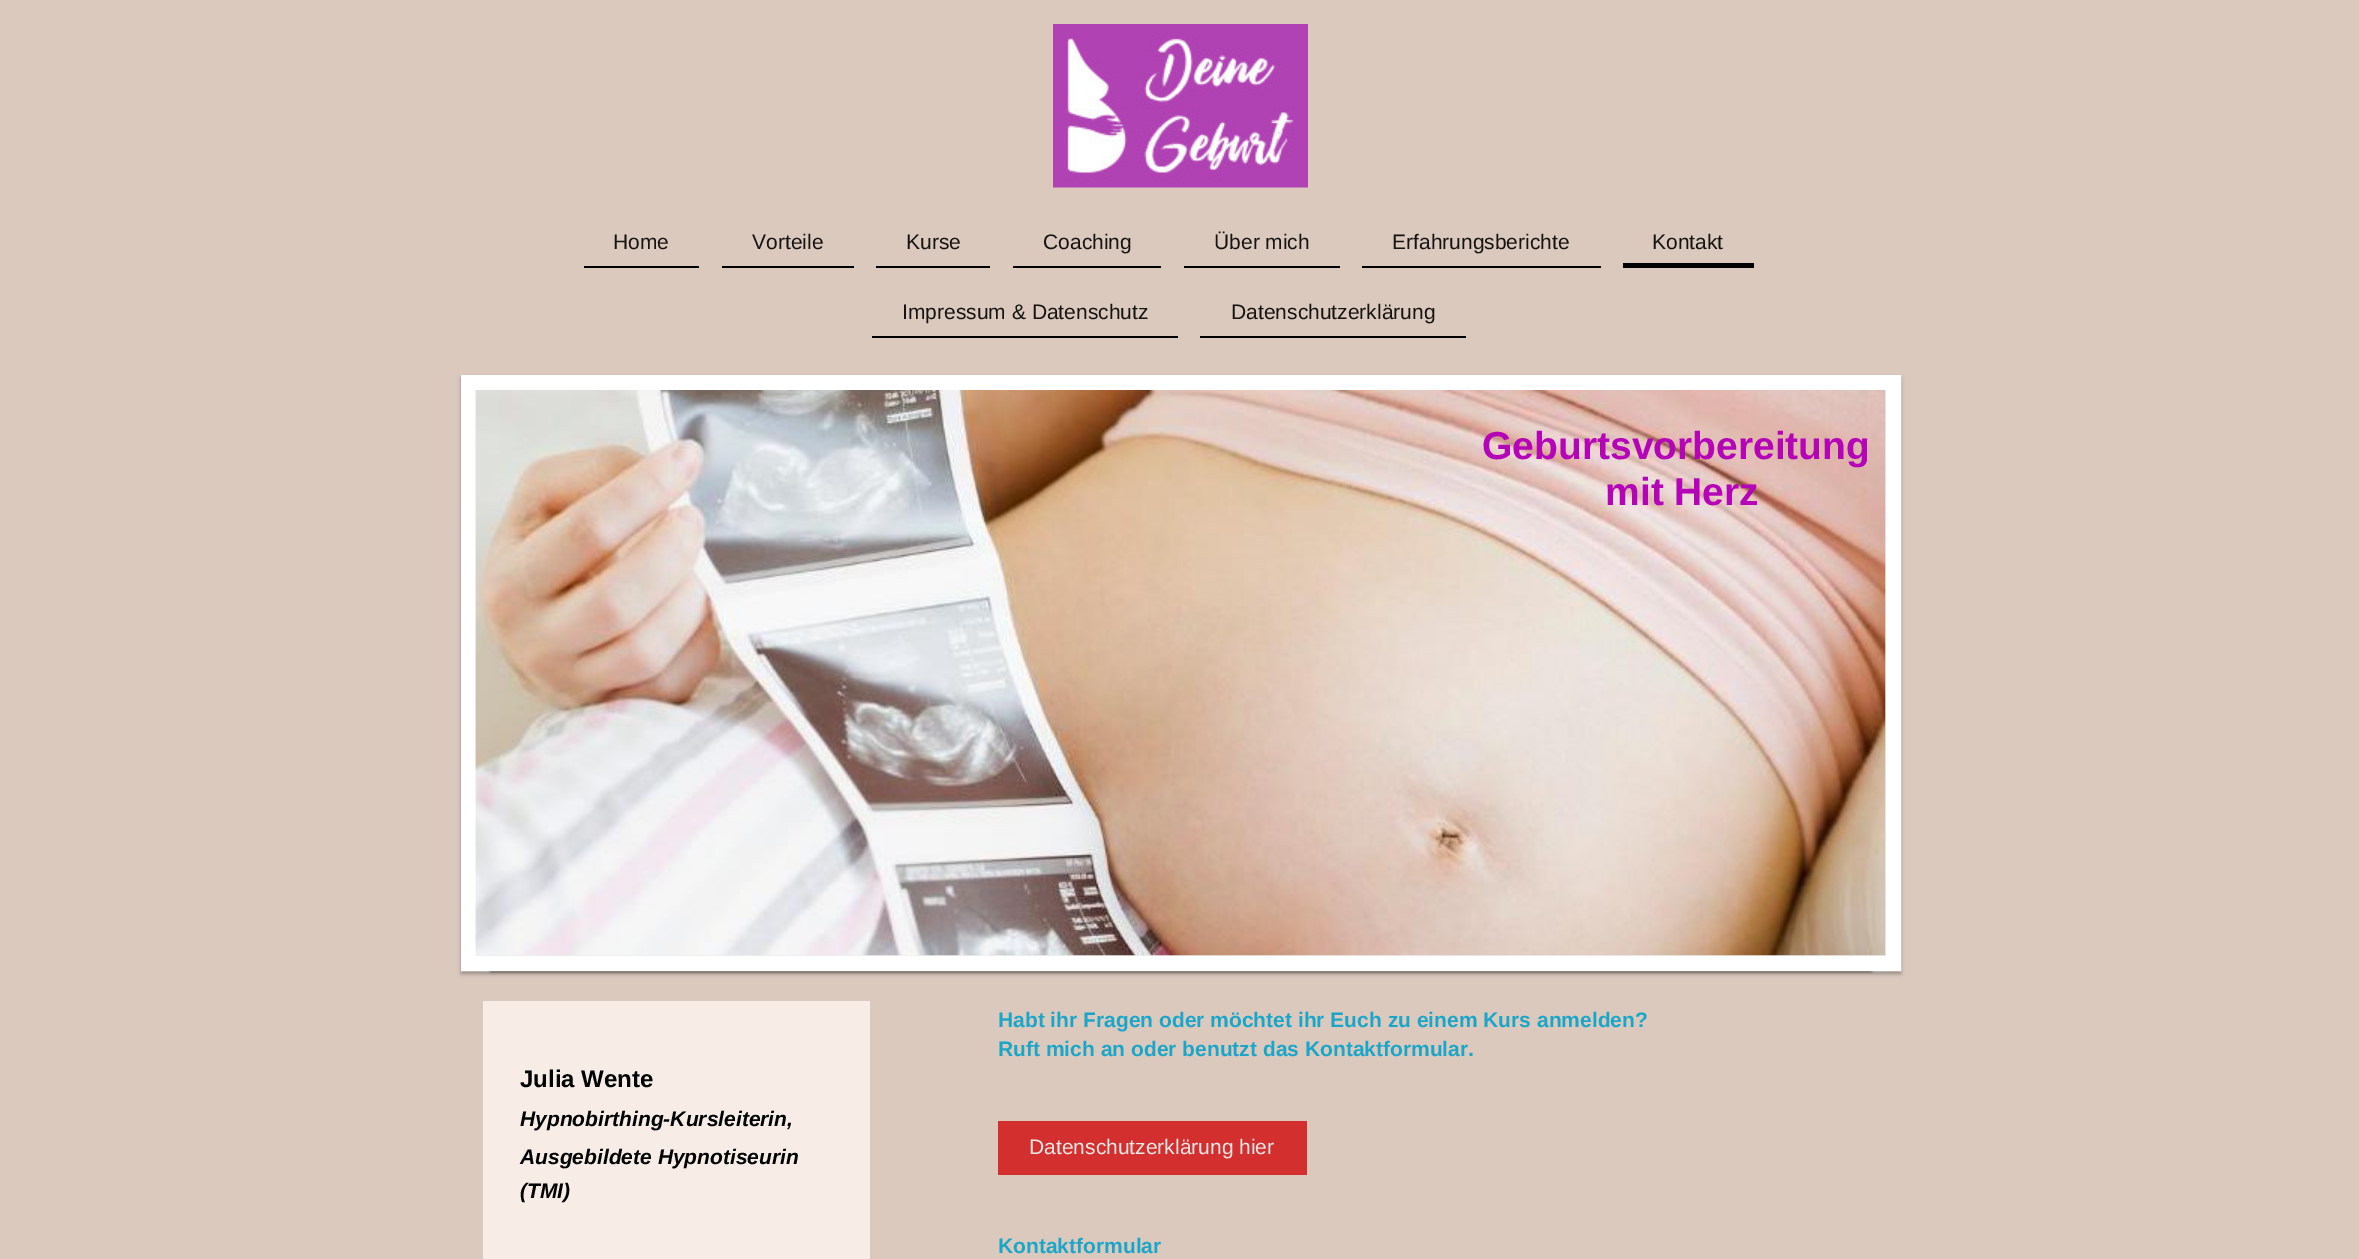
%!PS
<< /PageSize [2359 1259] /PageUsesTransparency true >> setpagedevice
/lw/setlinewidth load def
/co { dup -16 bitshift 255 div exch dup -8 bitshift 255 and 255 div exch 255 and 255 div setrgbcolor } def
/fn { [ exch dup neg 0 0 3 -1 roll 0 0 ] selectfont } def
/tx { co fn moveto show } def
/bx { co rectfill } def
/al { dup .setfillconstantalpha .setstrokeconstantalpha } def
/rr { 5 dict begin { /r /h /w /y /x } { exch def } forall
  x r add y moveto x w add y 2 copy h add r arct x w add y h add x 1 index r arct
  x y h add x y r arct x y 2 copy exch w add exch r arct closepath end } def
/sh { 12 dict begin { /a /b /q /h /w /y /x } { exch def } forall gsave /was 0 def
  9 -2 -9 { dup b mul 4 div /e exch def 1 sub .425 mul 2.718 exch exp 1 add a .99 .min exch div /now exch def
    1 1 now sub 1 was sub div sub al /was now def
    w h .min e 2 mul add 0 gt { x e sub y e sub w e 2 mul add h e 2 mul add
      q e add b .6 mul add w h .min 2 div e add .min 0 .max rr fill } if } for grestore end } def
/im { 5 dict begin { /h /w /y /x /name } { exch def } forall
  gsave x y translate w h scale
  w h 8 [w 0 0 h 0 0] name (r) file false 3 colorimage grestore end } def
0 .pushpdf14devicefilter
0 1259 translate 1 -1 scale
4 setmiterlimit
0 0 2359 1259 16#DBC9BD bx
(media/1.raw) 1053 24 255 164 im
584 266 115 2 16#000000 bx
722 266 132 2 16#000000 bx
876 266 114 2 16#000000 bx
1013 266 148 2 16#000000 bx
1184 266 156 2 16#000000 bx
1362 266 239 2 16#000000 bx
1623 263 131 5 16#000000 bx
872 336 306 2 16#000000 bx
1200 336 266 2 16#000000 bx
461 378 1440 596 0 2 .3 sh
491 435 1380 536 0 1.5 1 sh
16#FFFFFF co
15 lw
468.5 382.5 1425 581 rectstroke
(media/2.raw) 475 390 1 566 im
476 390 1410 566 16#EEEEEE bx
(media/3.raw) 475 390 1411 566 im
483 1001 387 258 16#F7EDE6 bx
998 1121 309 54 16#D32F2F bx
(Home) 613 249 /LiberationSans-Regular 21 16#161413 tx
(Vorteile) 752 249 /LiberationSans-Regular 21 16#161413 tx
(Kurse) 906 249 /LiberationSans-Regular 21 16#161413 tx
(Coaching) 1043 249 /LiberationSans-Regular 21 16#161413 tx
(Über mich) 1214 249 /LiberationSans-Regular 21 16#161413 tx
(Erfahrungsberichte) 1392 249 /LiberationSans-Regular 21 16#161413 tx
(Kontakt) 1652 249 /LiberationSans-Regular 21 16#161413 tx
(Impressum & Datenschutz) 902 319 /LiberationSans-Regular 21 16#161413 tx
(Datenschutzerklärung) 1231 319 /LiberationSans-Regular 21 16#161413 tx
(Geburtsvorbereitung) 1482 459 /LiberationSans-Bold 39 16#B504B7 tx
(mit Herz) 1605 505 /LiberationSans-Bold 39 16#B504B7 tx
(Julia Wente) 520 1087 /LiberationSans-Bold 24 16#000000 tx
(Hypnobirthing-Kursleiterin,) 520 1126 /LiberationSans-BoldItalic 21 16#000000 tx
(Ausgebildete Hypnotiseurin) 520 1164 /LiberationSans-BoldItalic 21 16#000000 tx
(\(TMI\)) 520 1198 /LiberationSans-BoldItalic 21 16#000000 tx
(Habt ihr Fragen oder möchtet ihr Euch zu einem Kurs anmelden?) 998 1027 /LiberationSans-Bold 21 16#1AA6C9 tx
(Ruft mich an oder benutzt das Kontaktformular.) 998 1056 /LiberationSans-Bold 21 16#1AA6C9 tx
(Datenschutzerklärung hier) 1029 1154 /LiberationSans-Regular 21 16#EBE9E8 tx
(Kontaktformular) 998 1253 /LiberationSans-Bold 21 16#1AA6C9 tx
.poppdf14devicefilter showpage
